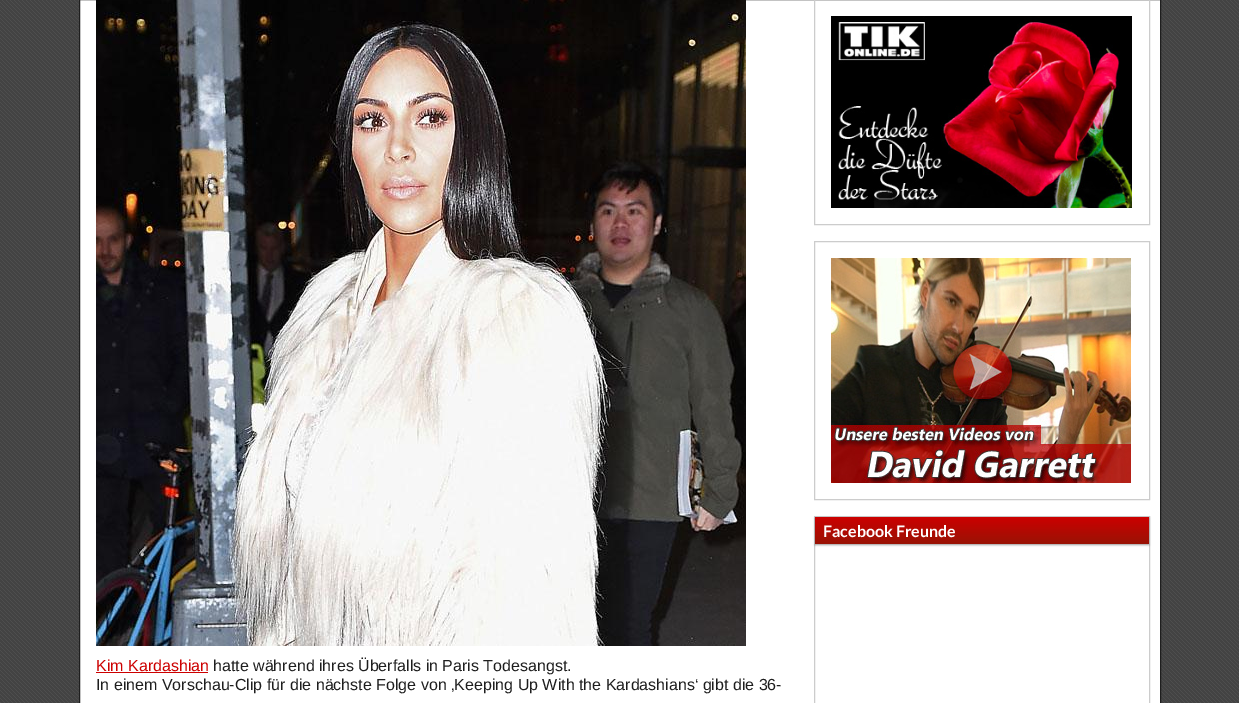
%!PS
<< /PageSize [1239 703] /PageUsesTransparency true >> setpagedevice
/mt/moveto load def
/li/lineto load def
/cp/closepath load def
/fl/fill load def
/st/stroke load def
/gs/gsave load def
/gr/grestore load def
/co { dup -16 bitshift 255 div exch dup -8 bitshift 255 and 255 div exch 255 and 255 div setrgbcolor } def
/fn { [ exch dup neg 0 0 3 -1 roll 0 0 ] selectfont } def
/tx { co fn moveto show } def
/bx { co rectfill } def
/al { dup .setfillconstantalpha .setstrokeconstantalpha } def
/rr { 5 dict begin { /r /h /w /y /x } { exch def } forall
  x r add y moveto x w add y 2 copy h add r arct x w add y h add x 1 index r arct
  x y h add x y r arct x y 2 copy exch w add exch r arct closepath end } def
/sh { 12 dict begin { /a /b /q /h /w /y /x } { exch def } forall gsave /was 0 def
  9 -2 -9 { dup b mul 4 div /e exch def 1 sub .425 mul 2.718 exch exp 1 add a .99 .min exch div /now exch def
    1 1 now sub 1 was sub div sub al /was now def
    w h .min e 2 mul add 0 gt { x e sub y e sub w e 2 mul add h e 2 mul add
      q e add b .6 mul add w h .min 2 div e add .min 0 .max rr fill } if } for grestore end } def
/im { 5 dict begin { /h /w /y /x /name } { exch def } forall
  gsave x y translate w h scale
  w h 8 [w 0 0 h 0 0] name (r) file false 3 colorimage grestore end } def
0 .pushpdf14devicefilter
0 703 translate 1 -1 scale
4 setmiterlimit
0 0 1239 703 16#FFFFFF bx
(media/1.raw) 0 0 1239 703 im
79.5 -.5 mt 1160.5 -.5 li 1160.5 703.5 li 79.5 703.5 li cp gs fl gr
16#1E1E1E co
st
16#CCCCCC co
814.5 -.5 335 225 rectstroke
(media/2.raw) 831 16 301 192 im
814.5 241.5 335 258 rectstroke
(media/3.raw) 831 258 300 225 im
814.5 516.5 335 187 rectstroke
16#000000 co
815 518 334 27 0 1 .4 sh
gs 815 517 mt 1149 517 li 1149 544 li 815 544 li cp clip newpath
<< /ShadingType 2 /ColorSpace /DeviceRGB /Coords [982 517 982 544] /Extend [true true] /Function << /FunctionType 2 /Domain [0 1] /C0 [.8 0 0] /C1 [.6 .075 .02] /N 1 >> >> shfill gr
(media/4.raw) 96 0 650 646 im
96 672 112 1 16#CC0000 bx
(Facebook Freunde) 823 537 /Lato-Bold 16 16#FFFFFF tx
(Kim Kardashian) 96 671 /LiberationSans-Regular 16 16#CC0000 tx
(hatte während ihres Überfalls in Paris Todesangst.) 213 671 /LiberationSans-Regular 16 16#1E1E1E tx
(In einem Vorschau-Clip für die nächste Folge von ‚Keeping Up With the Kardashians‘ gibt die 36-) 96 690 /LiberationSans-Regular 16 16#1E1E1E tx
.poppdf14devicefilter showpage
